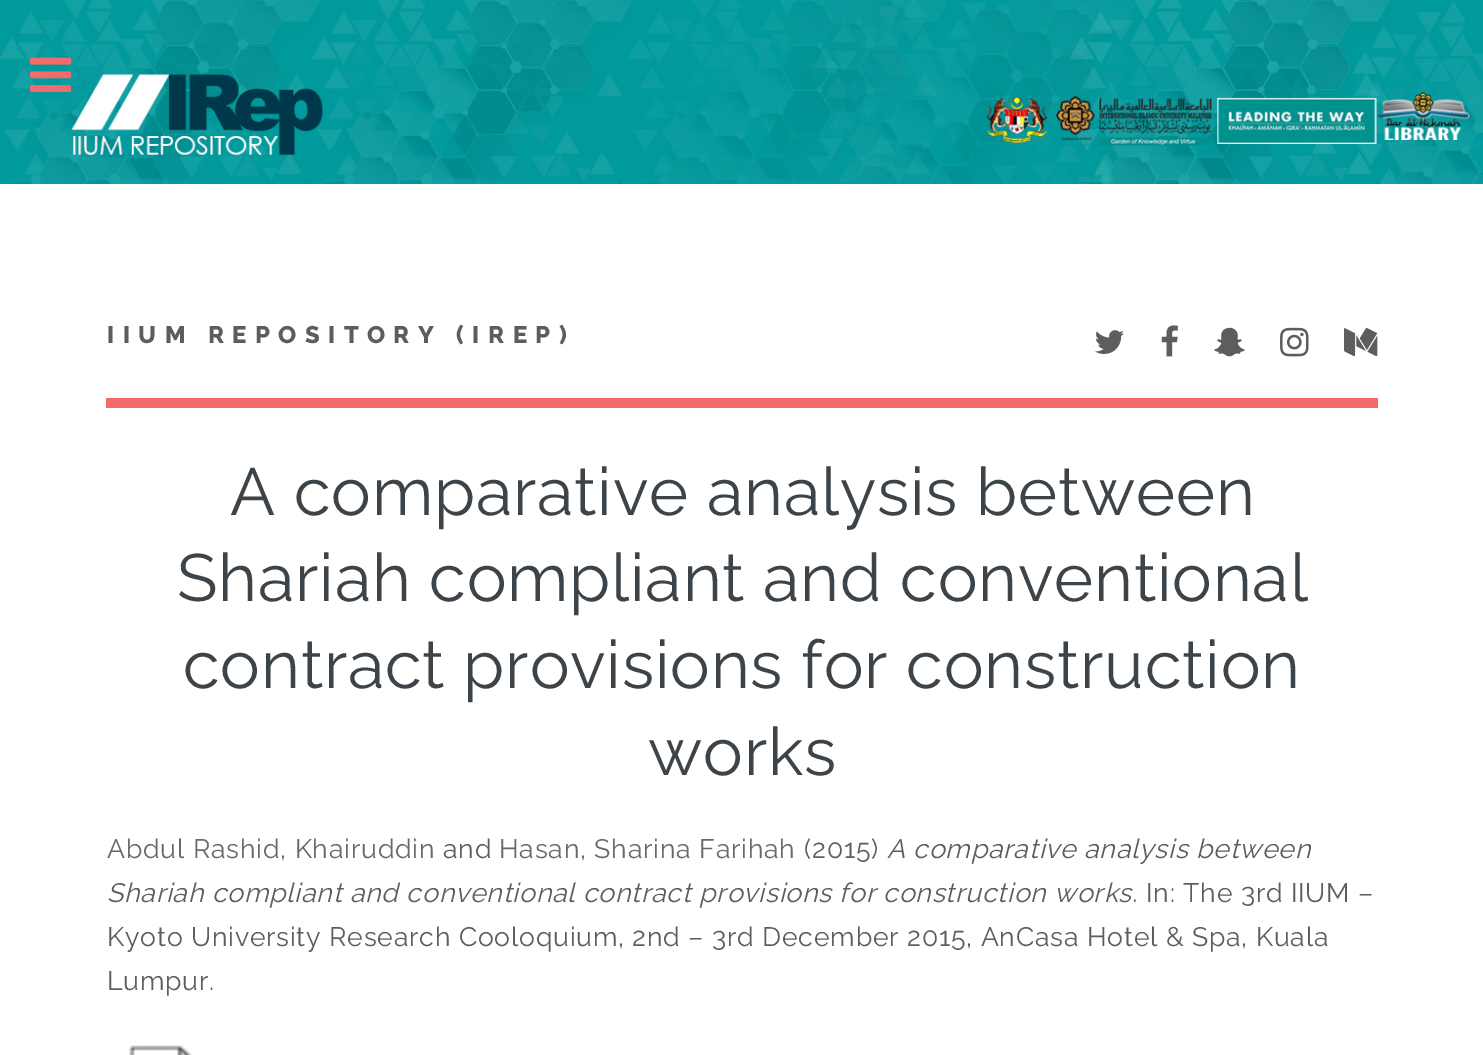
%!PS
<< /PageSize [1483 1055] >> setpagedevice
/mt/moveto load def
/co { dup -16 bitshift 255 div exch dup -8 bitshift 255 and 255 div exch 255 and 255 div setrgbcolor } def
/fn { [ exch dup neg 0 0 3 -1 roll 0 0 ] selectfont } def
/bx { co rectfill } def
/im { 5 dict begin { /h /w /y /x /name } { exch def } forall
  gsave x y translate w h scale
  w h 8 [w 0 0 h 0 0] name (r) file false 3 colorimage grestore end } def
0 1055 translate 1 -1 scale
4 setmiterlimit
0 0 1483 1055 16#FFFFFF bx
(media/1.raw) 0 0 1483 184 im
(media/2.raw) 30 57 42 35 im
106 398 1272 10 16#F56A6A bx
(media/3.raw) 1095 330 29 24 im
(media/4.raw) 1161 325 17 32 im
(media/5.raw) 1214 327 31 30 im
(media/6.raw) 1280 327 29 30 im
(media/7.raw) 1344 328 34 29 im
(media/8.raw) 129 1045 64 10 im
/Raleway-ExtraBold 24 fn
16#5D5D5D co
107 343 mt 8.4 0 (IIUM REPOSITORY \(IREP\)) ashow
/Raleway-Regular 66.7 fn
16#3D4449 co
230 515 mt .8 0 (A comparative analysis between) ashow
177 601 mt .8 0 (Shariah compliant and conventional) ashow
183 688 mt .8 0 (contract provisions for construction) ashow
648 775 mt .8 0 (works) ashow
/Raleway-Regular 26.65 fn
16#696969 co
107 858 mt .8 0 (Abdul Rashid, Khairuddin) ashow
16#5D5D5D co
443 858 mt .8 0 (and) ashow
16#696969 co
499 858 mt .8 0 (Hasan, Sharina Farihah) ashow
16#5D5D5D co
804 858 mt .8 0 (\(2015\)) ashow
/Raleway-Italic 26.65 fn
887 858 mt .8 0 (A comparative analysis between) ashow
107 902 mt .8 0 (Shariah compliant and conventional contract provisions for construction works.) ashow
/Raleway-Regular 26.65 fn
1146 902 mt .8 0 (In: The 3rd IIUM –) ashow
107 946 mt .8 0 (Kyoto University Research Cooloquium, 2nd – 3rd December 2015, AnCasa Hotel & Spa, Kuala) ashow
107 990 mt .8 0 (Lumpur.) ashow
showpage
